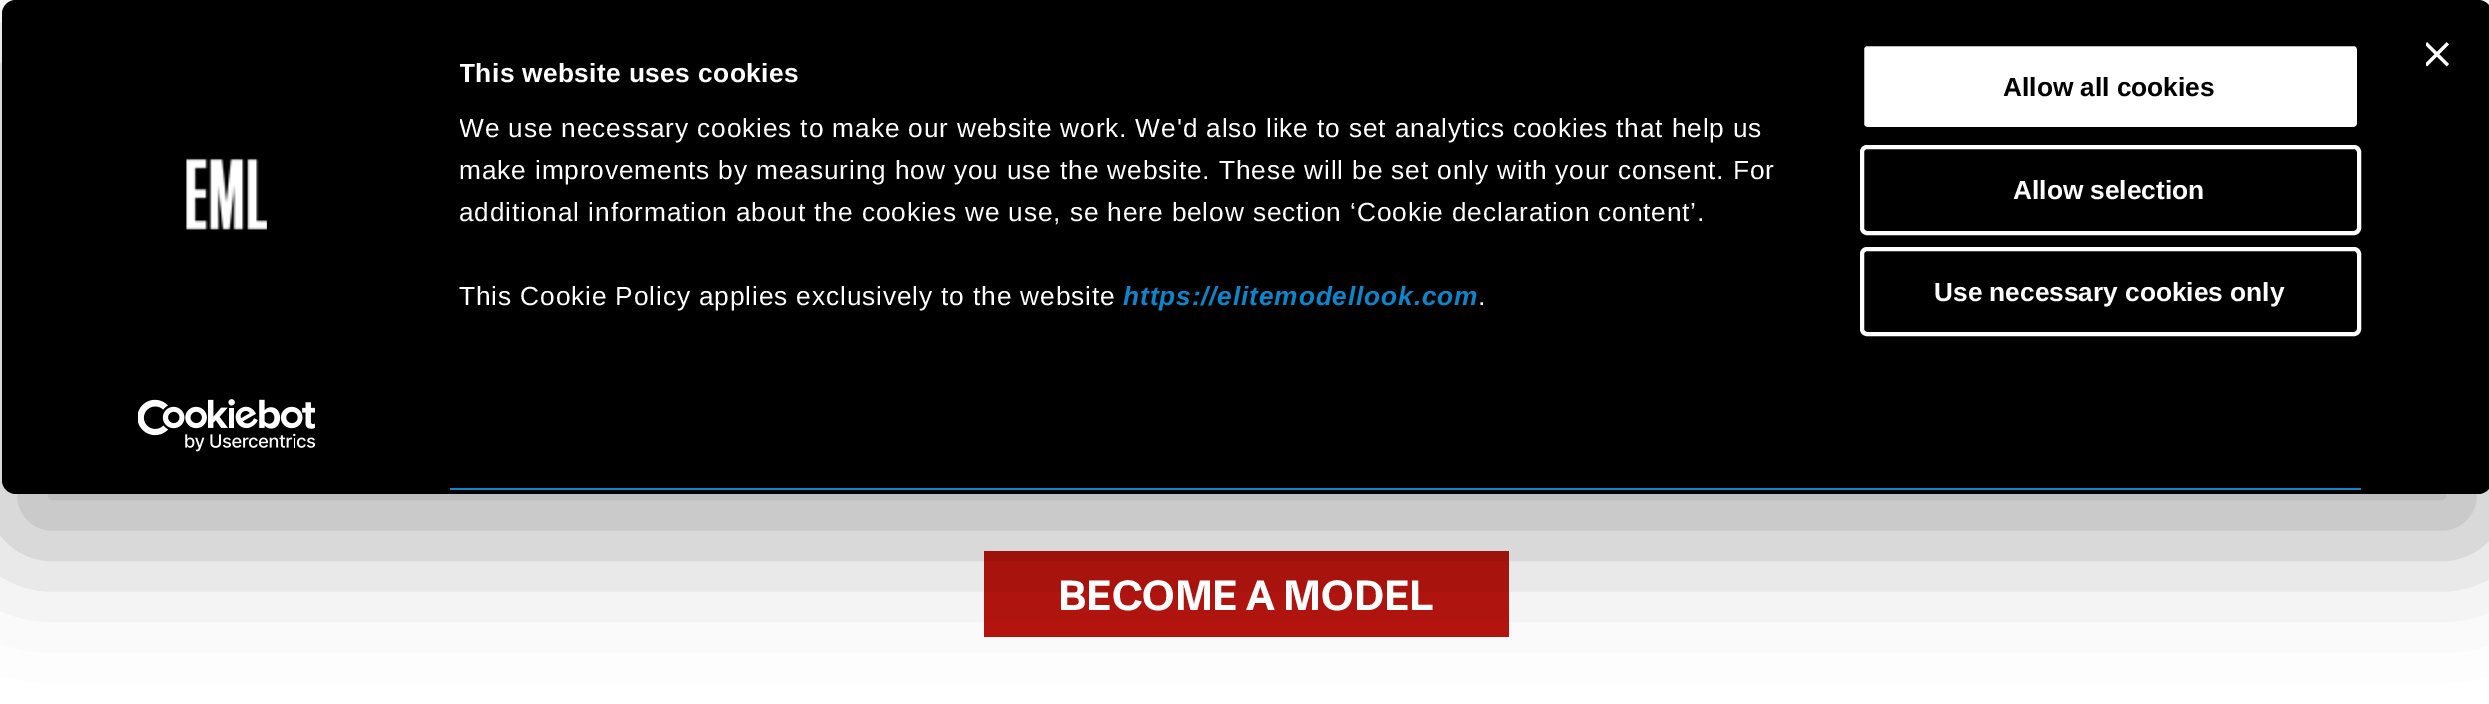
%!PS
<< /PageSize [2489 704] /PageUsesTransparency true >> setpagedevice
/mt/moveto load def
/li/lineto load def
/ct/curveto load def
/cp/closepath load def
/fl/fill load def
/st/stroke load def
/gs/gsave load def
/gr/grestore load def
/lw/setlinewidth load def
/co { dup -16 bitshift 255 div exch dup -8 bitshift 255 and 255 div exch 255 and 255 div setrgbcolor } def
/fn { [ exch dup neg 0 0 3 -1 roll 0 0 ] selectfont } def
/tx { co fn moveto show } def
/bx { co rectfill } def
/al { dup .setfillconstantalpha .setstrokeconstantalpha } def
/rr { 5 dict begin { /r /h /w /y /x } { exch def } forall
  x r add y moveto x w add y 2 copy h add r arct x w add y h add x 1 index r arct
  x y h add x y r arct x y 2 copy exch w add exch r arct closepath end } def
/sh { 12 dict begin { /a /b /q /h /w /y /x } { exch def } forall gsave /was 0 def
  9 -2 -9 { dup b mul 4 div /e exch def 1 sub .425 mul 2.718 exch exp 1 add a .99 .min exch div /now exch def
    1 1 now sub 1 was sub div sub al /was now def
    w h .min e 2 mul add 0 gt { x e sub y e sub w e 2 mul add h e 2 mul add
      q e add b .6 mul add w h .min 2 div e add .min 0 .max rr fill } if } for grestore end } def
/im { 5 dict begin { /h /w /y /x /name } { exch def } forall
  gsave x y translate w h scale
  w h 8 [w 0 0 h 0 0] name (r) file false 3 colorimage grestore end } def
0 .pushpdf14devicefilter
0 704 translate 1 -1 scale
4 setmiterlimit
0 0 2489 704 16#FFFFFF bx
984 551 525 86 16#B7140E bx
gs
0 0 mt 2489 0 li 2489 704 li 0 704 li cp 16 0 mt 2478 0 li 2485.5 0 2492 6.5 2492 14 ct 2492 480 li 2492 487.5 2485.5 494 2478 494 ct 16 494 li 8.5 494 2 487.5 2 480 ct 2 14 li 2 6.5 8.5 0 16 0 ct cp eoclip newpath
16#000000 co
2 53 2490 493 14 61 .3 sh
gr
16#000000 co
2 0 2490 494 14 rr fl
(media/1.raw) 2426 42 23 25 im
(media/2.raw) 186 158 81 72 im
(media/3.raw) 138 399 177 53 im
450 488 1911 2 16#0D85CA bx
16#FFFFFF co
1862 44 497 85 5 rr gs fl gr
16#000000 co
4 lw
st
16#FFFFFF co
1862 147 497 86 5 rr st
1862 249 497 85 5 rr st
gs
460 53 1350 386 rectclip
/LiberationSans-Bold 26.25 fn
459 82 mt .4 0 (This website uses cookies) ashow
/LiberationSans-Regular 26.25 fn
459 137 mt .88 0 (We use necessary cookies to make our website work. We'd also like to set analytics cookies that help us) ashow
gr
/LiberationSans-Regular 26.25 fn
459 179 mt .88 0 (make improvements by measuring how you use the website. These will be set only with your consent. For) ashow
459 221 mt .88 0 (additional information about the cookies we use, se here below section ‘Cookie declaration content’.) ashow
459 305 mt .88 0 (This Cookie Policy applies exclusively to the website) ashow
/LiberationSans-BoldItalic 26.25 fn
16#0D85CA co
1123 305 mt .88 0 (https://elitemodellook.com) ashow
/LiberationSans-Regular 26.25 fn
16#FFFFFF co
1478 305 mt .88 0 (.) ashow
(Allow all cookies) 2003 96 /LiberationSans-Bold 26.25 16#000000 tx
(Allow selection) 2013 199 /LiberationSans-Bold 26.25 16#FFFFFF tx
(Use necessary cookies only) 1934 301 /LiberationSans-Bold 26.25 16#FFFFFF tx
(BECOME A MODEL) 1058 610 /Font-Bold 42 16#FFFFFF tx
.poppdf14devicefilter showpage
